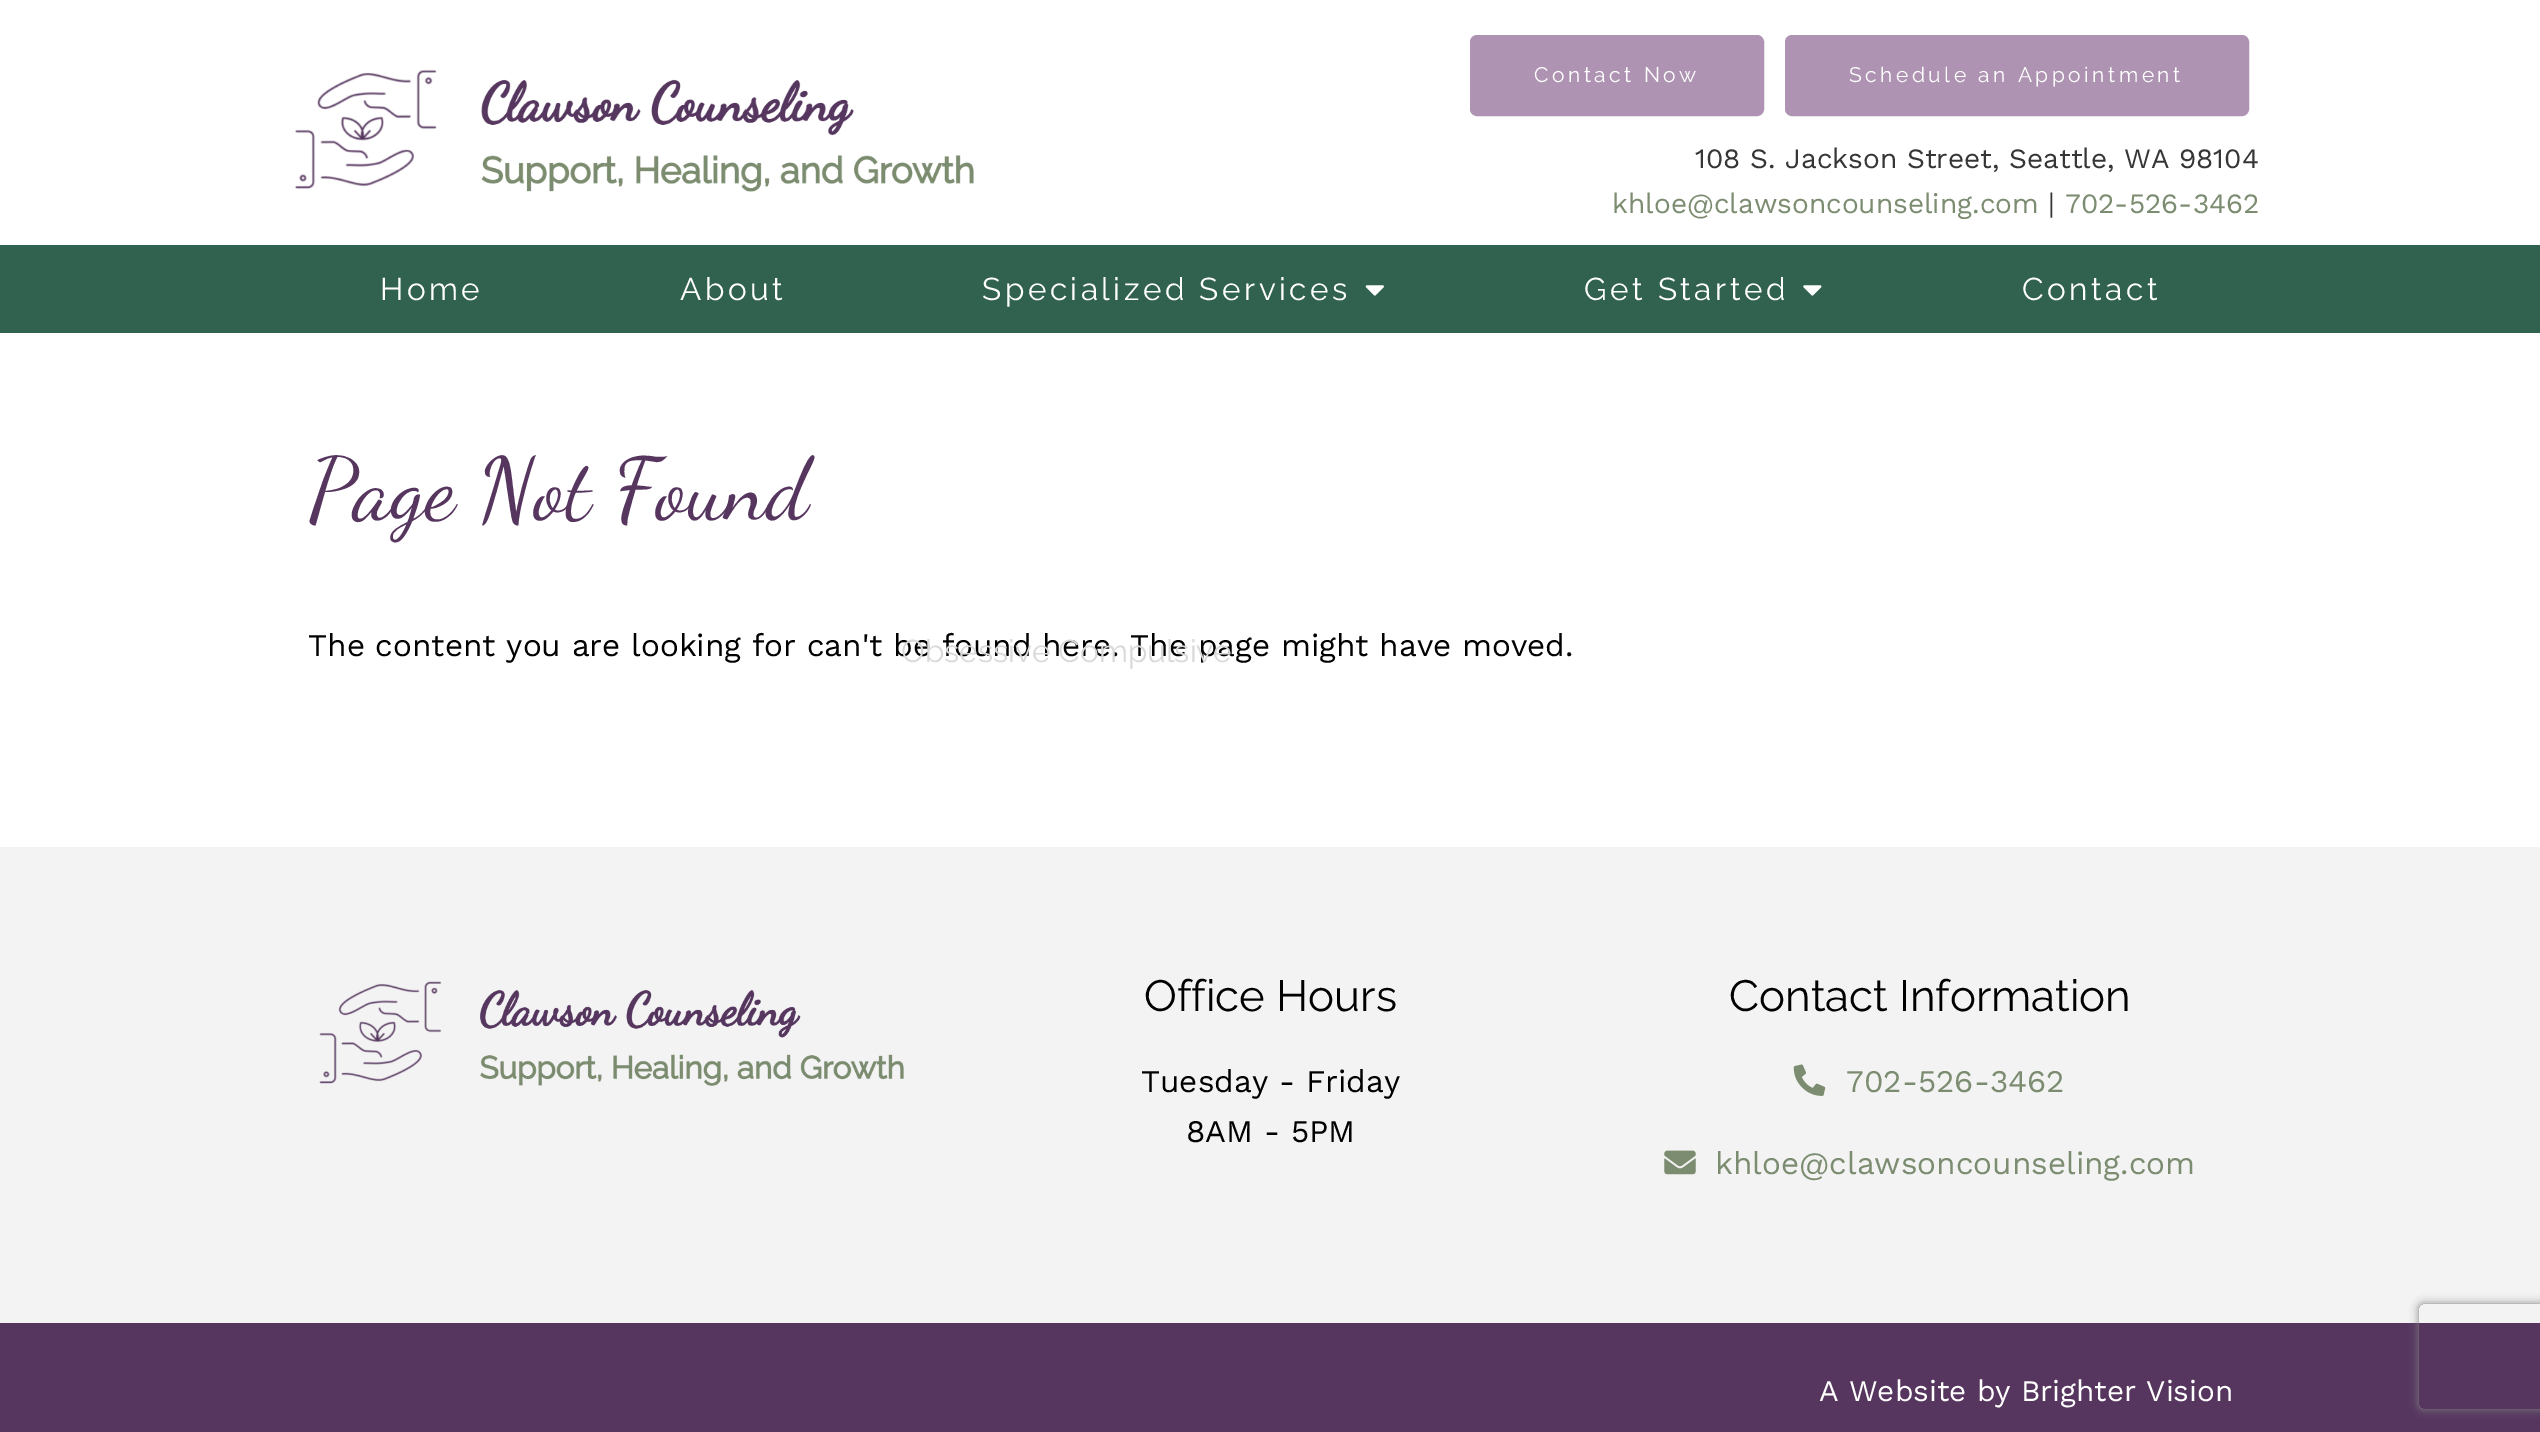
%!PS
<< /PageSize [2540 1432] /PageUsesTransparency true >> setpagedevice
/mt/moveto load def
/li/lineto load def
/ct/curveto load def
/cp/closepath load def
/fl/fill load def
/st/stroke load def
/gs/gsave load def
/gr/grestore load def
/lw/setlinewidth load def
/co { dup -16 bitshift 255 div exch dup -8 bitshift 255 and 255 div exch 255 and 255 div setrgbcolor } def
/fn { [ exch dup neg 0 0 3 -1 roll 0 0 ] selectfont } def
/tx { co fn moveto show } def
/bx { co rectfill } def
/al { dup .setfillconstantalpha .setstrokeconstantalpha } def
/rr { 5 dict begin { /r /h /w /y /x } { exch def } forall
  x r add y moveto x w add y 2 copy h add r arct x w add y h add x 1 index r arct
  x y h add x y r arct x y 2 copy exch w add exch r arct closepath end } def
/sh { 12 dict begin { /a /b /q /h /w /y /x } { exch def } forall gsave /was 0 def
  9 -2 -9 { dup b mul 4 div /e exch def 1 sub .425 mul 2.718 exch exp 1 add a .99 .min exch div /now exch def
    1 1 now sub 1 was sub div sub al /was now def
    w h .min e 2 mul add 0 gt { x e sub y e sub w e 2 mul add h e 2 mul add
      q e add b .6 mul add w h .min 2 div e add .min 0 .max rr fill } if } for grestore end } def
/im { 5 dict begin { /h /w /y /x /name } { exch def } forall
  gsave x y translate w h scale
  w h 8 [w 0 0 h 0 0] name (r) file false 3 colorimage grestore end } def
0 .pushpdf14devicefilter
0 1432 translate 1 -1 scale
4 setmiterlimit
0 0 2540 1432 16#FFFFFF bx
(media/1.raw) 295 69 679 123 im
16#AE94B2 co
1472 37 290 77 5 rr gs fl gr
4 lw
st
1787 37 460 77 5 rr gs fl gr
st
0 245 2540 88 16#316250 bx
(media/2.raw) 1365 285 19 11 im
(media/3.raw) 1803 285 19 11 im
0 847 2540 476 16#F3F3F3 bx
(media/4.raw) 319 981 585 105 im
(media/5.raw) 1793 1064 33 32 im
(media/6.raw) 1664 1150 32 25 im
0 1323 2540 109 16#56365F bx
gs
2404 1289 mt 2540 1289 li 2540 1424 li 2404 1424 li cp 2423 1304 mt 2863 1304 li 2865 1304 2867 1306 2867 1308 ct 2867 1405 li 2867 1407 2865 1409 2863 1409 ct 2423 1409 li 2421 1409 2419 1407 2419 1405 ct 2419 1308 li 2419 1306 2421 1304 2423 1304 ct cp eoclip newpath
16#808080 co
2419 1304 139 105 4 4.5 1 sh
gr
/Raleway-Regular 21 fn
16#FFFFFF co
1534 82 mt 3.5 0 (Contact Now) ashow
1849 82 mt 3.5 0 (Schedule an Appointment) ashow
(108 S. Jackson Street, Seattle, WA 98104) 1695 168 /WorkSans-Regular 28 16#363636 tx
(khloe@clawsoncounseling.com) 1612 213 /WorkSans-Regular 28 16#7C8C70 tx
(|) 2048 213 /WorkSans-Regular 28 16#363636 tx
(702-526-3462) 2065 213 /WorkSans-Regular 28 16#7C8C70 tx
/Raleway-Regular 31.5 fn
16#FFFFFF co
380 300 mt 3.5 0 (Home) ashow
680 300 mt 3.5 0 (About) ashow
982 300 mt 3.5 0 (Specialized Services) ashow
1584 300 mt 3.5 0 (Get Started) ashow
2022 300 mt 3.5 0 (Contact) ashow
(Page Not Found) 308 518 /DancingScript-Regular 87.5 16#56365F tx
(The content you are looking for can't be found here. The page might have moved.) 308 656 /WorkSans-Regular 31.5 16#000000 tx
(Obsessive Compulsive) 901 662 /Raleway-Regular 31.5 16#D9D9D9 tx
(Office Hours) 1144 1011 /Raleway-Regular 43.75 16#000000 tx
(Tuesday - Friday) 1141 1092 /WorkSans-Regular 31.5 16#000000 tx
(8AM - 5PM) 1186 1142 /WorkSans-Regular 31.5 16#000000 tx
(Contact Information) 1729 1011 /Raleway-Regular 43.75 16#000000 tx
(702-526-3462) 1846 1092 /WorkSans-Regular 31.5 16#7C8C70 tx
(khloe@clawsoncounseling.com) 1715 1174 /WorkSans-Regular 31.5 16#7C8C70 tx
(A Website by Brighter Vision) 1819 1401 /WorkSans-Regular 29.75 16#FFFFFF tx
.poppdf14devicefilter showpage
